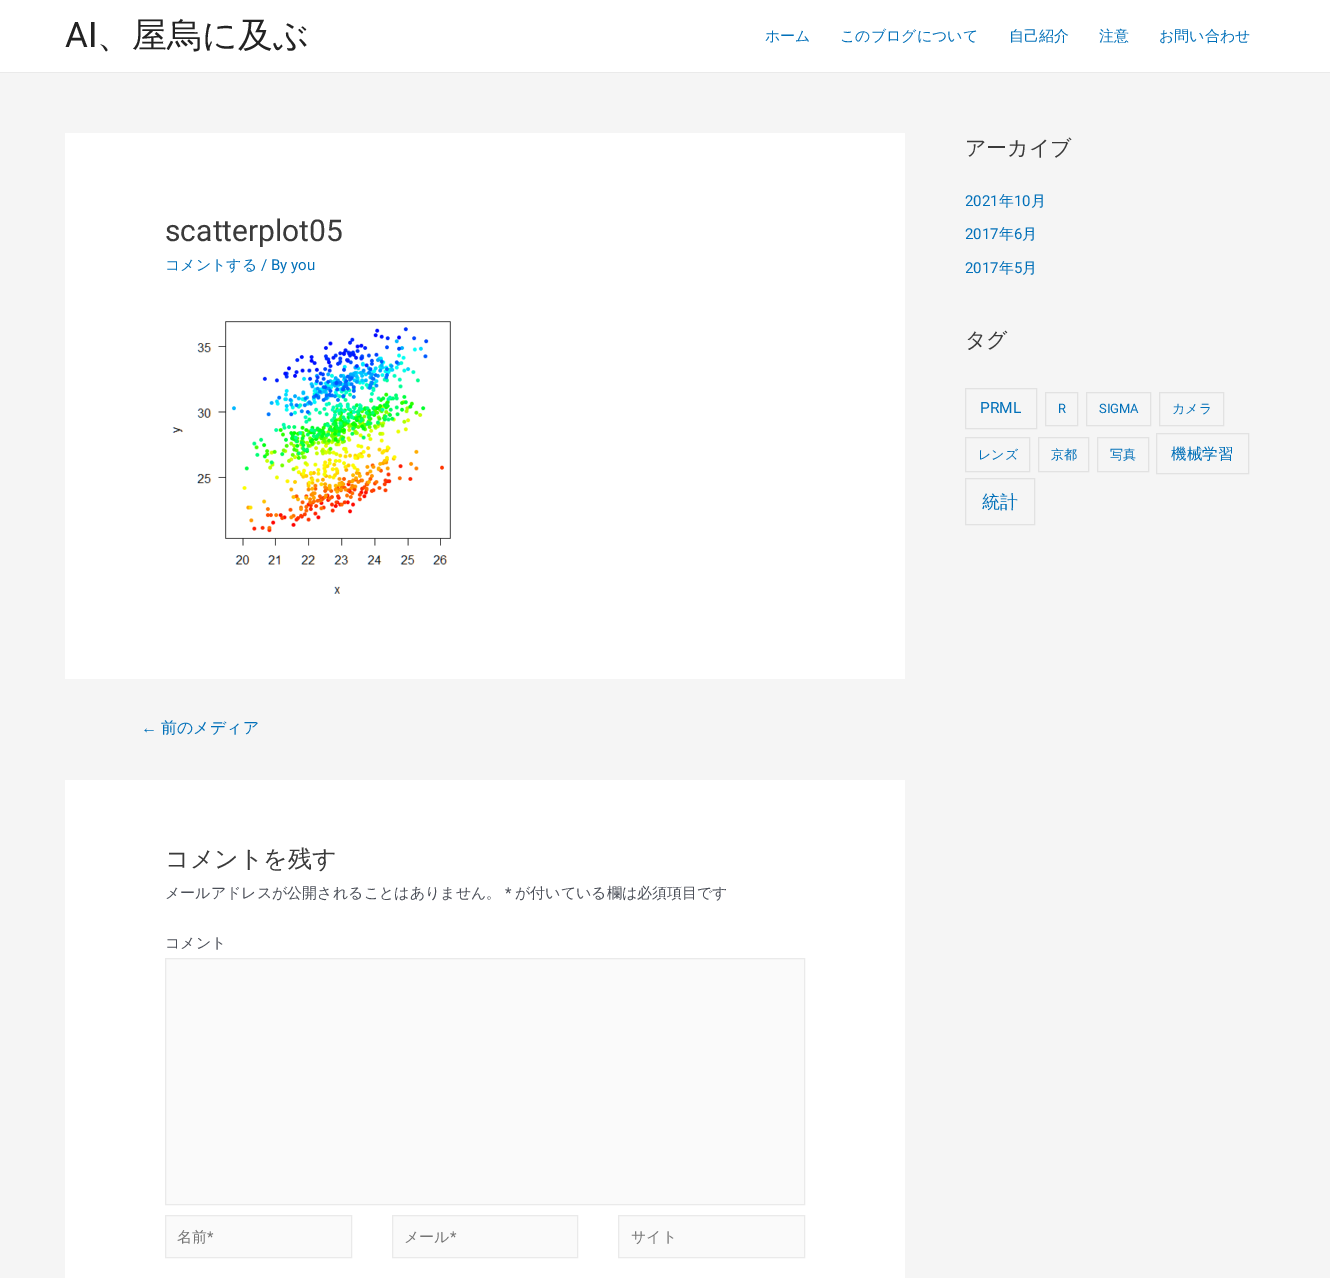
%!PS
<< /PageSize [1330 1278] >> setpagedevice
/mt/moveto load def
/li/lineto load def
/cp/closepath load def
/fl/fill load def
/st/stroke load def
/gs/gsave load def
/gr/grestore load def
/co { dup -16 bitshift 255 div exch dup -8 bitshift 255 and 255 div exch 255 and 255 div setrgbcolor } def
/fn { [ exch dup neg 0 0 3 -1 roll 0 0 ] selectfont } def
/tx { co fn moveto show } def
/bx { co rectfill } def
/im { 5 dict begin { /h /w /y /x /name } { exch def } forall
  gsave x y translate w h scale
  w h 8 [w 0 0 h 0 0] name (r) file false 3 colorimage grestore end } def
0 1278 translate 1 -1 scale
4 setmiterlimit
0 0 1330 1278 16#F5F5F5 bx
0 0 1330 72 16#FFFFFF bx
0 72 1330 1 16#EAEAEA bx
65 133 840 546 16#FFFFFF bx
(media/1.raw) 172 321 279 273 im
65 780 840 498 16#FFFFFF bx
16#FAFAFA co
165.5 958.5 mt 804.5 958.5 li 804.5 1204.5 li 165.5 1204.5 li cp gs fl gr
16#EAEAEA co
st
16#FAFAFA co
165.5 1215.5 mt 351.5 1215.5 li 351.5 1257.5 li 165.5 1257.5 li cp gs fl gr
16#EAEAEA co
st
16#FAFAFA co
392.5 1215.5 mt 577.5 1215.5 li 577.5 1257.5 li 392.5 1257.5 li cp gs fl gr
16#EAEAEA co
st
16#FAFAFA co
618.5 1215.5 mt 804.5 1215.5 li 804.5 1257.5 li 618.5 1257.5 li cp gs fl gr
16#EAEAEA co
st
16#E2E2E2 co
965.5 388.5 71 40 rectstroke
1045.5 392.5 32 33 rectstroke
1086.5 392.5 64 33 rectstroke
1159.5 392.5 64 33 rectstroke
965.5 437.5 64 34 rectstroke
1038.5 437.5 50 34 rectstroke
1097.5 437.5 51 34 rectstroke
1156.5 433.5 92 40 rectstroke
965.5 478.5 69 46 rectstroke
(AI) 65 47 /Roboto-Regular 35 16#222222 tx
(、屋烏に及ぶ) 97 47 /WenQuanYiZenHei-Medium 35 16#222222 tx
(ホーム) 765 41 /WenQuanYiZenHei-Medium 15 16#0170B9 tx
(このブログについて) 840 41 /WenQuanYiZenHei-Medium 15 16#0170B9 tx
(自己紹介) 1009 41 /WenQuanYiZenHei-Medium 15 16#0170B9 tx
(注意) 1099 41 /WenQuanYiZenHei-Medium 15 16#0170B9 tx
(お問い合わせ) 1159 41 /WenQuanYiZenHei-Medium 15 16#0170B9 tx
(scatterplot05) 165 241 /Roboto-Regular 30 16#3A3A3A tx
(コメントする) 165 270 /WenQuanYiZenHei-Medium 15 16#0170B9 tx
(/ By you) 261 270 /Roboto-Regular 15 16#0170B9 tx
(←) 141 733 /LiberationSans-Regular 16 16#0170B9 tx
(前のメディア) 161 733 /WenQuanYiZenHei-Medium 16 16#0170B9 tx
(コメントを残す) 165 867 /WenQuanYiZenHei-Medium 24 16#3A3A3A tx
(メールアドレスが公開されることはありません。) 165 898 /WenQuanYiZenHei-Medium 15 16#4B4F58 tx
(*) 505 898 /Roboto-Regular 15 16#4B4F58 tx
(が付いている欄は必須項目です) 515 898 /WenQuanYiZenHei-Medium 15 16#4B4F58 tx
(コメント) 165 948 /WenQuanYiZenHei-Medium 15 16#4B4F58 tx
(名前) 177 1242 /WenQuanYiZenHei-Medium 15 16#757575 tx
(*) 207 1242 /Roboto-Regular 15 16#757575 tx
(メール) 404 1242 /WenQuanYiZenHei-Medium 15 16#757575 tx
(*) 450 1242 /Roboto-Regular 15 16#757575 tx
(サイト) 631 1242 /WenQuanYiZenHei-Medium 15 16#757575 tx
(アーカイブ) 965 155 /WenQuanYiZenHei-Medium 21 16#3A3A3A tx
(2021) 965 206 /Roboto-Regular 15 16#0170B9 tx
(年) 999 206 /WenQuanYiZenHei-Medium 15 16#0170B9 tx
(10) 1014 206 /Roboto-Regular 15 16#0170B9 tx
(月) 1031 206 /WenQuanYiZenHei-Medium 15 16#0170B9 tx
(2017) 965 239 /Roboto-Regular 15 16#0170B9 tx
(年) 999 239 /WenQuanYiZenHei-Medium 15 16#0170B9 tx
(6) 1014 239 /Roboto-Regular 15 16#0170B9 tx
(月) 1022 239 /WenQuanYiZenHei-Medium 15 16#0170B9 tx
(2017) 965 273 /Roboto-Regular 15 16#0170B9 tx
(年) 999 273 /WenQuanYiZenHei-Medium 15 16#0170B9 tx
(5) 1014 273 /Roboto-Regular 15 16#0170B9 tx
(月) 1022 273 /WenQuanYiZenHei-Medium 15 16#0170B9 tx
(タグ) 965 347 /WenQuanYiZenHei-Medium 21 16#3A3A3A tx
(PRML) 980 413 /Roboto-Regular 15.5 16#0170B9 tx
(R) 1058 413 /Roboto-Regular 13 16#0170B9 tx
(SIGMA) 1099 413 /Roboto-Regular 13 16#0170B9 tx
(カメラ) 1172 413 /WenQuanYiZenHei-Medium 13 16#0170B9 tx
(レンズ) 978 459 /WenQuanYiZenHei-Medium 13 16#0170B9 tx
(京都) 1051 459 /WenQuanYiZenHei-Medium 13 16#0170B9 tx
(写真) 1110 459 /WenQuanYiZenHei-Medium 13 16#0170B9 tx
(機械学習) 1171 459 /WenQuanYiZenHei-Medium 15.5 16#0170B9 tx
(統計) 982 508 /WenQuanYiZenHei-Medium 18 16#0170B9 tx
showpage
